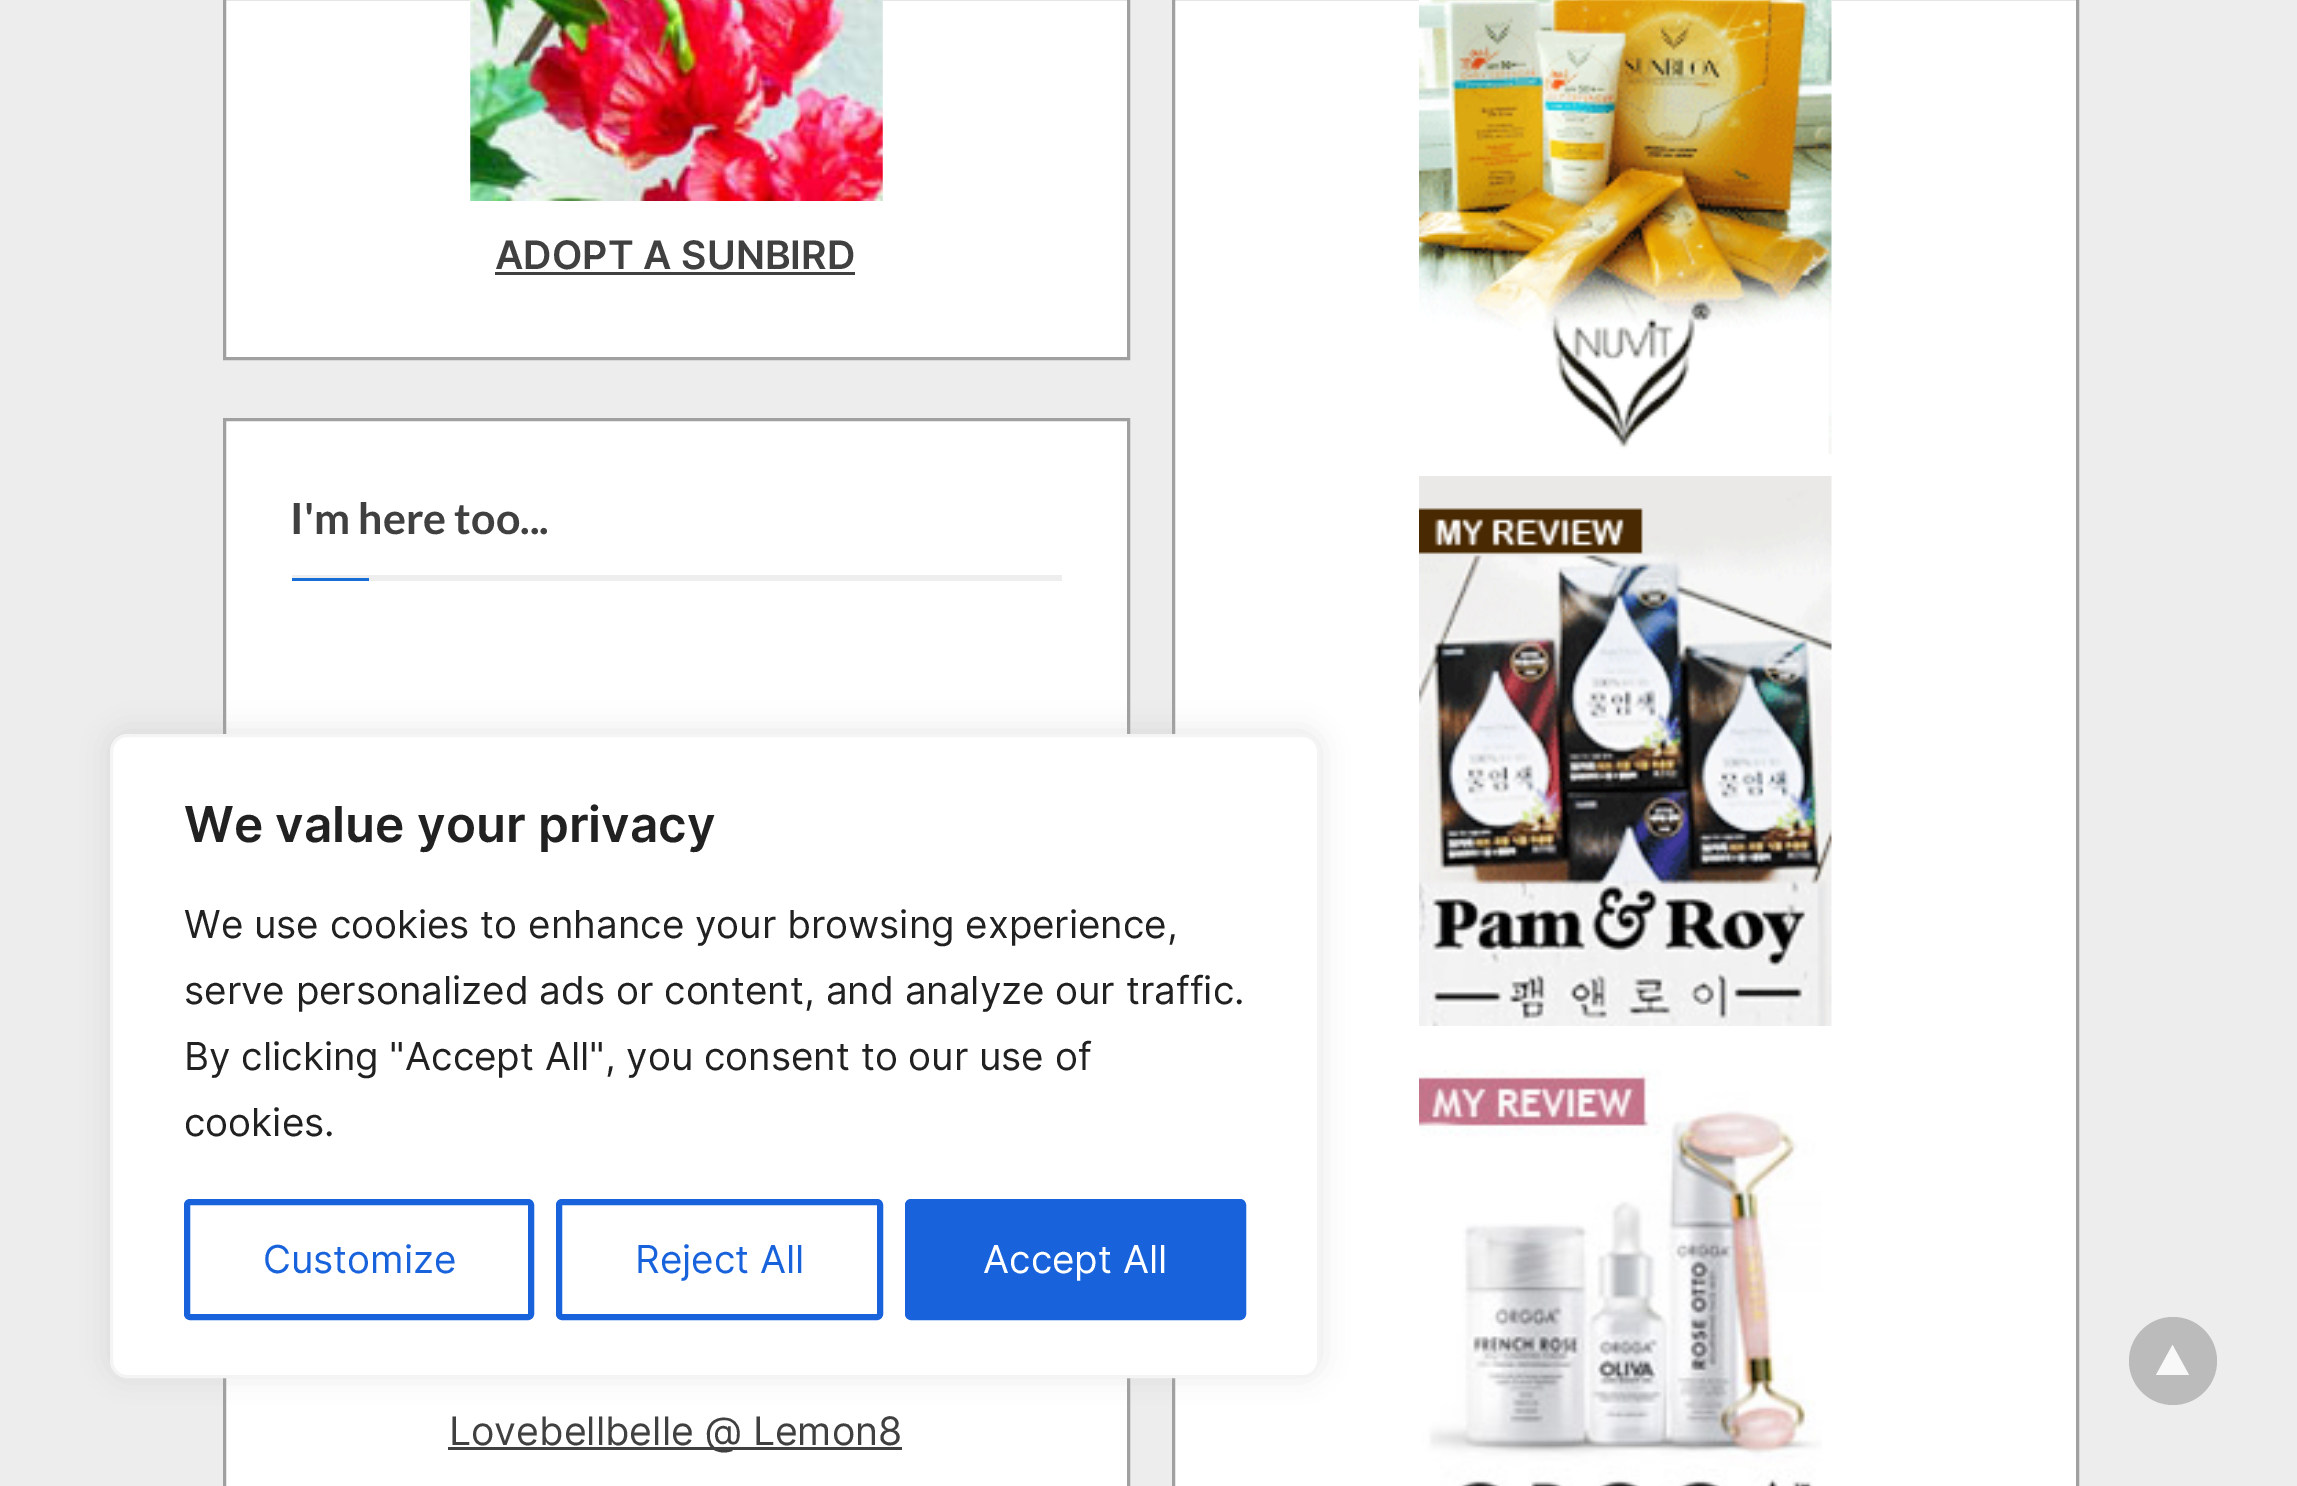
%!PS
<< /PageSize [2297 1486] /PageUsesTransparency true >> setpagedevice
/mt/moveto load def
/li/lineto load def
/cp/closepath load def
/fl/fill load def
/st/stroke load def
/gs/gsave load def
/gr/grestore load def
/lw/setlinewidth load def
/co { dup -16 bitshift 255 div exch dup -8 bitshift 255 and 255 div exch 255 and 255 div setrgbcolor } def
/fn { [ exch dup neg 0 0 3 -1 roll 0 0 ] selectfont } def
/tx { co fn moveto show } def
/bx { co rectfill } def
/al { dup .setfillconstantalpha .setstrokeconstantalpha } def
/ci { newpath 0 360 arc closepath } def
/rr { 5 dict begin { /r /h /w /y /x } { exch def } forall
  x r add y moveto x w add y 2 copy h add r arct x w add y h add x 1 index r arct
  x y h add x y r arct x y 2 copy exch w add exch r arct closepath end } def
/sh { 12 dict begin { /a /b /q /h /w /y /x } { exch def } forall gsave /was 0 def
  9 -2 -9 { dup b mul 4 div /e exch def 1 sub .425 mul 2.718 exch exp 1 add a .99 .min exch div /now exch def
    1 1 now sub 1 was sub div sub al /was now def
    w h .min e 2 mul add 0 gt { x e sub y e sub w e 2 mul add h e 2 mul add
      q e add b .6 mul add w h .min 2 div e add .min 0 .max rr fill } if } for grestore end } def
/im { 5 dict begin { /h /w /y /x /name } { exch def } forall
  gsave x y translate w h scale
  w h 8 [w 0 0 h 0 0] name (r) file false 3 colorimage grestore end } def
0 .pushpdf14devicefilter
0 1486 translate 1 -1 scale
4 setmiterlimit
0 0 2297 1486 16#EDEDED bx
16#FFFFFF co
224.5 -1.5 mt 1128.5 -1.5 li 1128.5 358.5 li 224.5 358.5 li cp gs fl gr
16#A0A0A0 co
3 lw
st
(media/1.raw) 470 0 413 201 im
495 272 360 3 16#404040 bx
16#FFFFFF co
224.5 419.5 mt 1128.5 419.5 li 1128.5 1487.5 li 224.5 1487.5 li cp gs fl gr
16#A0A0A0 co
st
292 575 770 6 16#EEEEEE bx
292 578 77 3 16#166DD6 bx
448 1447 454 3 16#404040 bx
16#FFFFFF co
1173.5 -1.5 mt 2077.5 -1.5 li 2077.5 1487.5 li 1173.5 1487.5 li cp gs fl gr
16#A0A0A0 co
st
(media/2.raw) 1419 0 413 454 im
(media/3.raw) 1419 476 413 550 im
(media/4.raw) 1419 1069 403 417 im
0.35 al
16#5F5F5F co
2173 1361 44 ci fl
1 al
16#F8F8F8 co
2189 1375 mt 2156 1375 li 2172.5 1345 li cp fl
16#ACABAB co
110 732 1210 643 17 14 .3 sh
16#FFFFFF co
111.5 735.5 1207 641 15.5 rr gs fl gr
16#F4F4F4 co
st
16#1863DC co
6 lw
187 1202 344 115 3 rr st
559 1202 321 115 3 rr st
908 1202 335 115 3 rr gs fl gr
st
(ADOPT A SUNBIRD) 495 269 /Inter-SemiBold 39.25 16#404040 tx
(I'm here too...) 290 534 /Lato-Bold 43 16#404040 tx
(Lovebellbelle @ Lemon8) 449 1445 /Inter-Regular 39.25 16#404040 tx
(We value your privacy) 184 842 /Inter-SemiBold 49.5 16#212121 tx
(We use cookies to enhance your browsing experience,) 184 938 /Inter-Regular 38.5 16#212121 tx
(serve personalized ads or content, and analyze our traffic.) 184 1004 /Inter-Regular 38.5 16#212121 tx
(By clicking "Accept All", you consent to our use of) 184 1070 /Inter-Regular 38.5 16#212121 tx
(cookies.) 184 1136 /Inter-Regular 38.5 16#212121 tx
(Customize) 263 1273 /Inter-Regular 38.5 16#1863DC tx
(Reject All) 635 1273 /Inter-Regular 38.5 16#1863DC tx
(Accept All) 983 1273 /Inter-Regular 38.5 16#FFFFFF tx
.poppdf14devicefilter showpage
